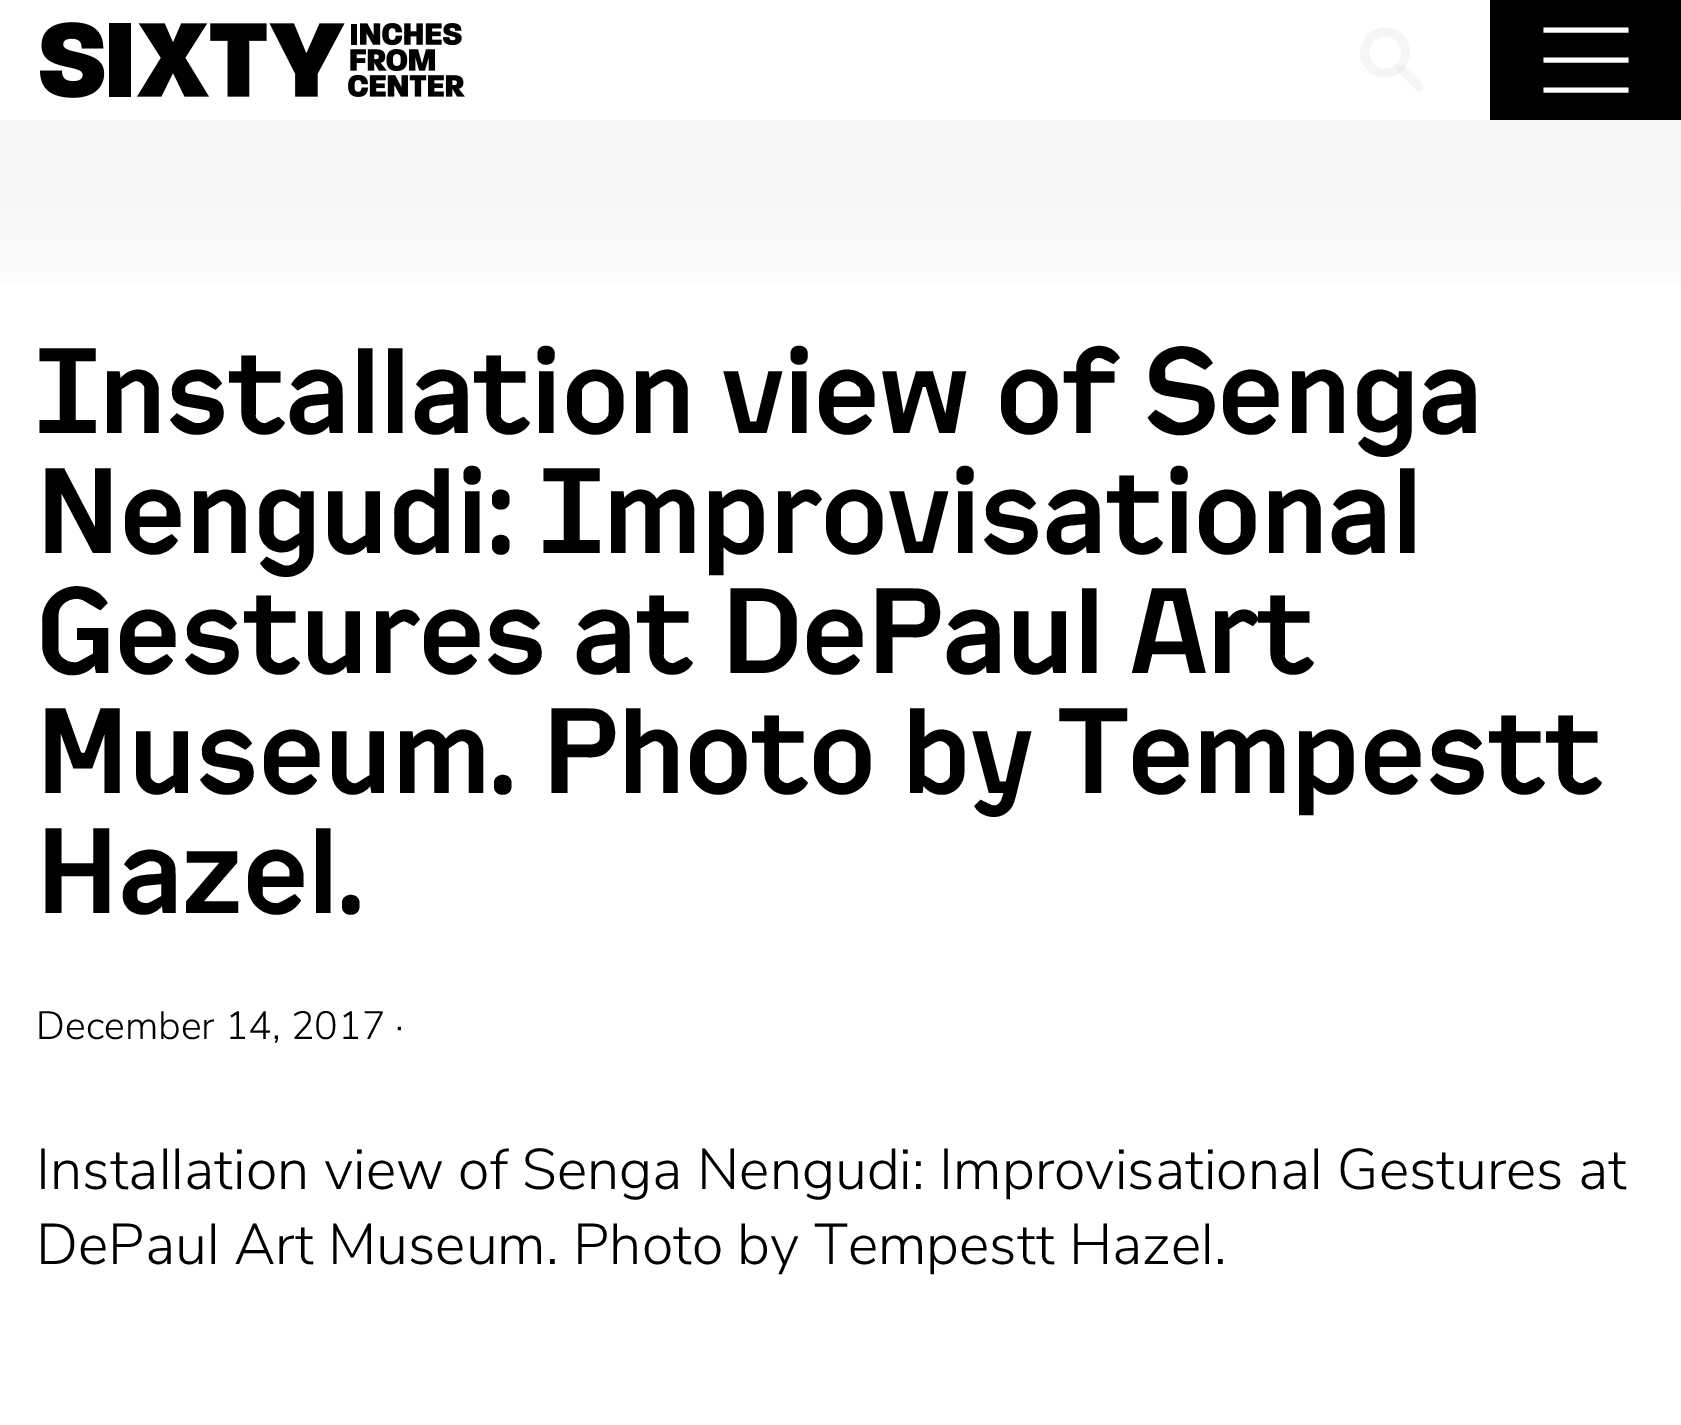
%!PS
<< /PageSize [1681 1425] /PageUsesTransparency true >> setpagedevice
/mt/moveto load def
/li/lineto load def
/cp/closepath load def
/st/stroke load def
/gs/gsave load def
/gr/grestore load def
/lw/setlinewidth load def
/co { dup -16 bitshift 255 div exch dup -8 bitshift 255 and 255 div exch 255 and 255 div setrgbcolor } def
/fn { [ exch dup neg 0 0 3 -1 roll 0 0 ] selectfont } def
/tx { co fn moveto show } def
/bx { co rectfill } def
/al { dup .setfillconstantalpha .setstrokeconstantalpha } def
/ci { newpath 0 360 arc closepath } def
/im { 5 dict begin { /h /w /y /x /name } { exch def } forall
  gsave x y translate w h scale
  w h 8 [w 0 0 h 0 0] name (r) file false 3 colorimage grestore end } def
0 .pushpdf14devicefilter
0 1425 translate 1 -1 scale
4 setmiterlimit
0 0 1681 1425 16#FFFFFF bx
gs 0 120 mt 1681 120 li 1681 284 li 0 284 li cp clip newpath
<< /ShadingType 2 /ColorSpace /DeviceRGB /Coords [841 0 841 325] /Extend [true true] /Function << /FunctionType 3 /Domain [0 1] /Functions [<< /FunctionType 2 /Domain [0 1] /C0 [.961 .961 .961] /C1 [.961 .961 .961] /N 1 >> << /FunctionType 2 /Domain [0 1] /C0 [.961 .961 .961] /C1 [1 1 1] /N 1 >>] /Bounds [.5] /Encode [0 1 0 1] >> >> shfill gr
(media/1.raw) 40 22 425 76 im
16#F5F5F5 co
8.8 lw
1385 52.5 20.5 ci st
0.2 al
16#CCCCCC co
1 setlinecap
1402.5 70 mt 1419 86.5 li st
1 al
1490 0 191 120 16#000000 bx
16#FFFFFF co
5 lw
2 setlinecap
1546 30 mt 1626 30 li 1546 60 mt 1626 60 li 1546 90 mt 1626 90 li st
(Installation view of Senga) 36 433 /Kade-Medium 120 16#000000 tx
(Nengudi: Improvisational) 36 553 /Kade-Medium 120 16#000000 tx
(Gestures at DePaul Art) 36 673 /Kade-Medium 120 16#000000 tx
(Museum. Photo by Tempestt) 36 793 /Kade-Medium 120 16#000000 tx
(Hazel.) 36 913 /Kade-Medium 120 16#000000 tx
(December 14, 2017 ·) 36 1039 /NunitoSans-Light 39.4 16#000000 tx
(Installation view of Senga Nengudi: Improvisational Gestures at) 36 1189 /NunitoSans-Light 57.4 16#000000 tx
(DePaul Art Museum. Photo by Tempestt Hazel.) 36 1264 /NunitoSans-Light 57.4 16#000000 tx
.poppdf14devicefilter showpage
